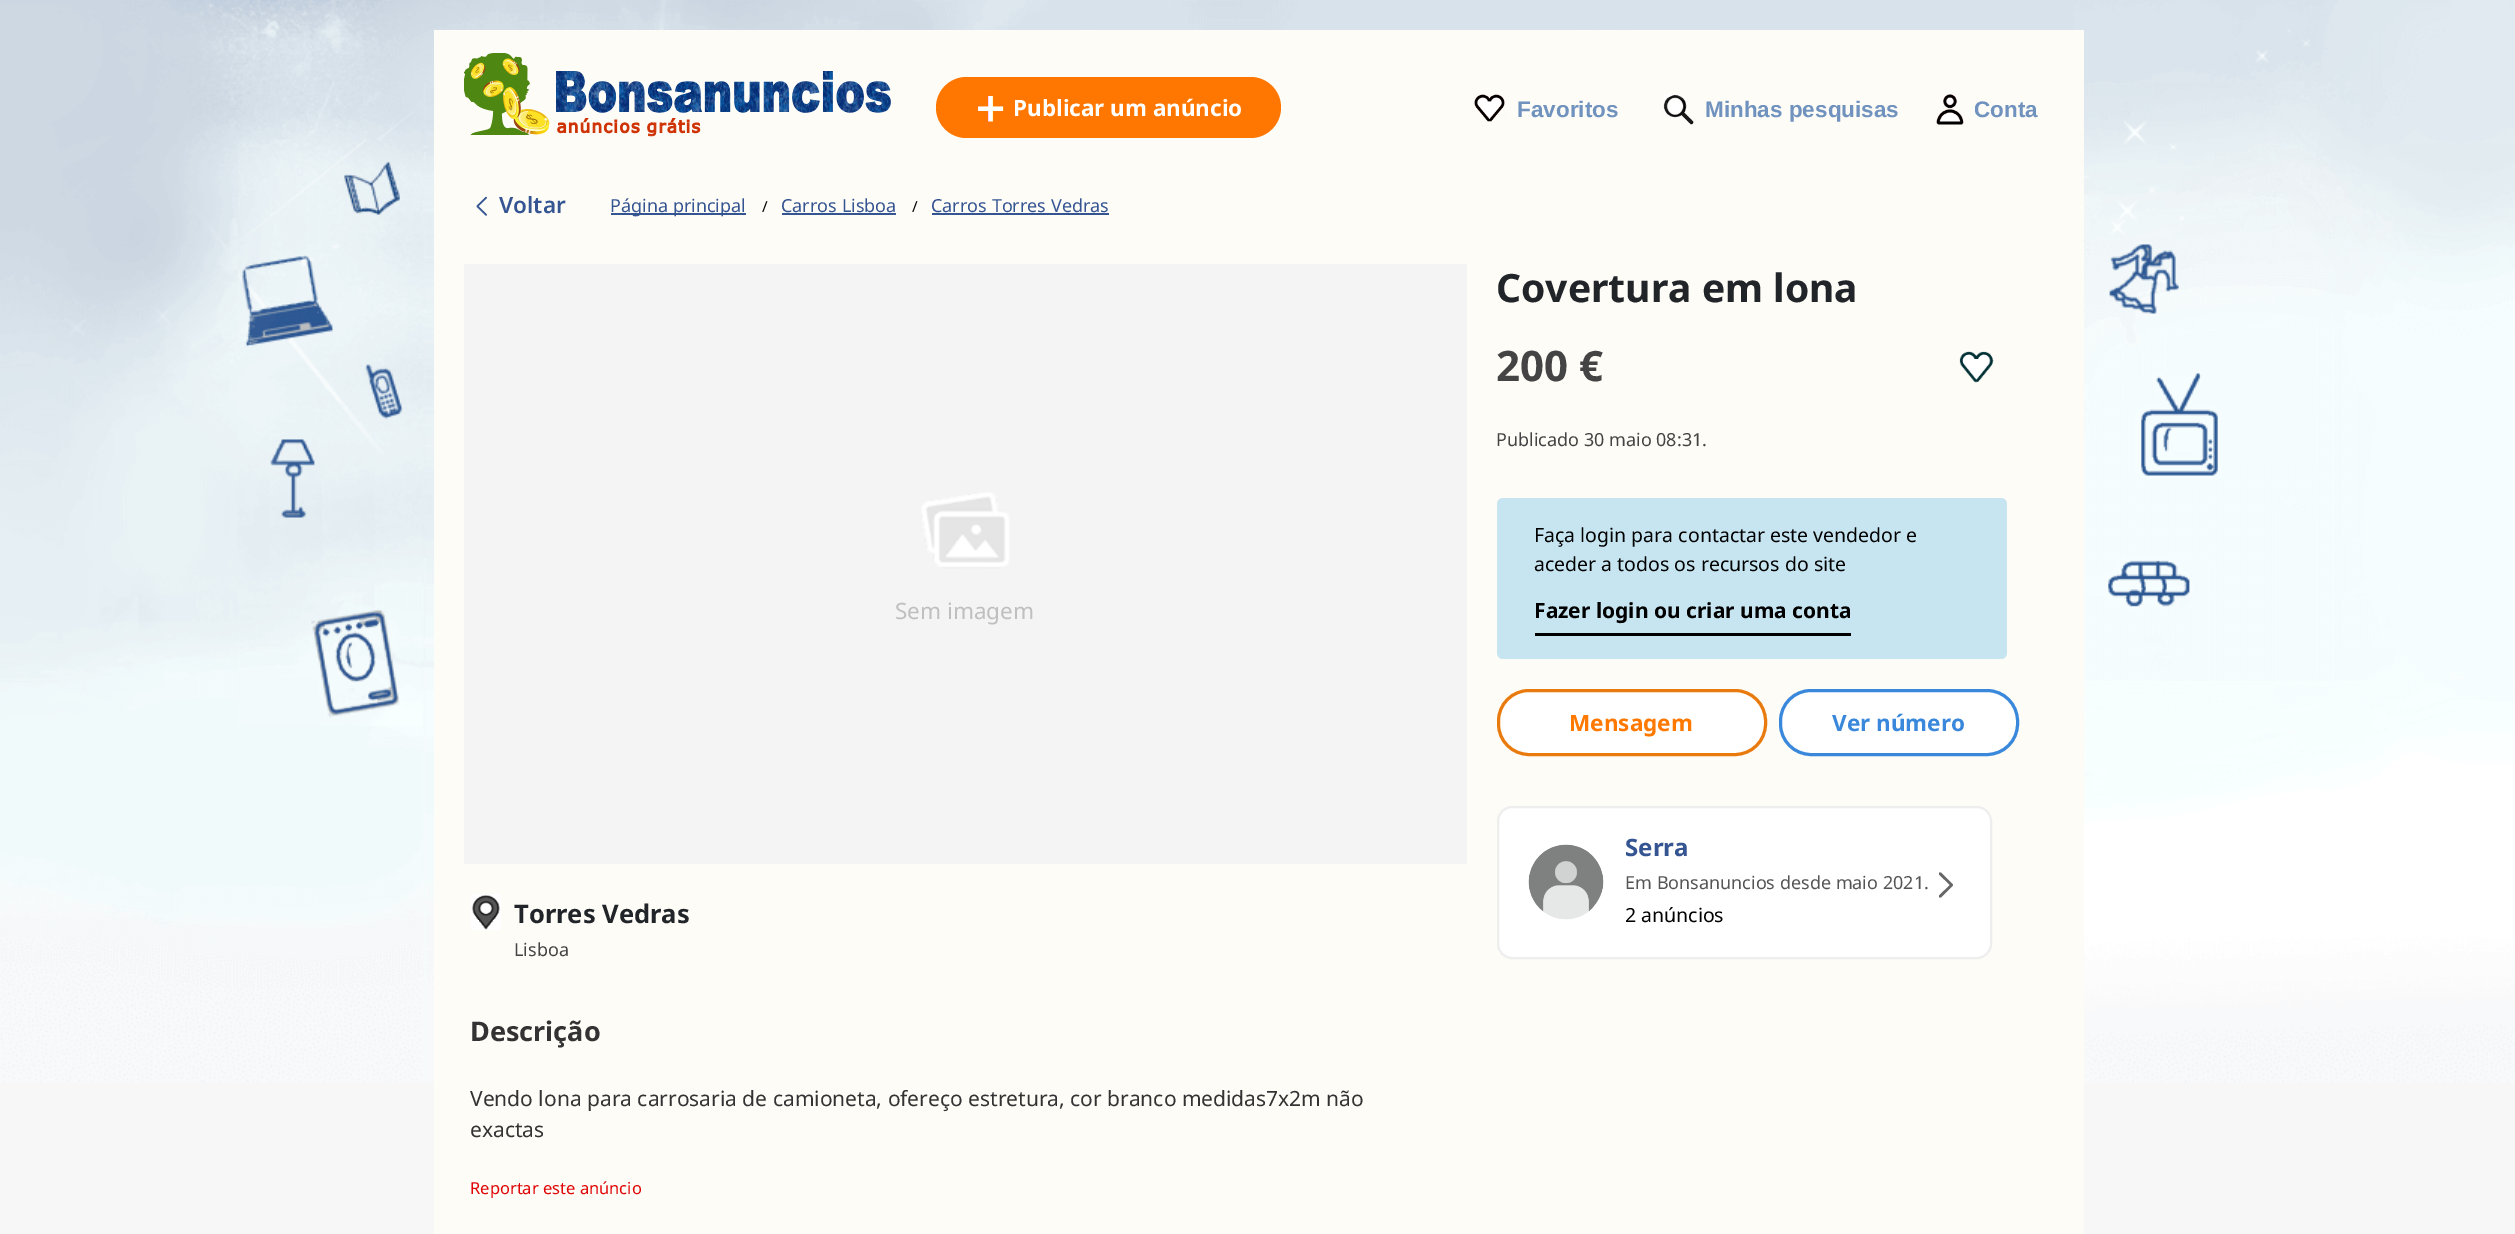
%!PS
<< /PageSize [2515 1234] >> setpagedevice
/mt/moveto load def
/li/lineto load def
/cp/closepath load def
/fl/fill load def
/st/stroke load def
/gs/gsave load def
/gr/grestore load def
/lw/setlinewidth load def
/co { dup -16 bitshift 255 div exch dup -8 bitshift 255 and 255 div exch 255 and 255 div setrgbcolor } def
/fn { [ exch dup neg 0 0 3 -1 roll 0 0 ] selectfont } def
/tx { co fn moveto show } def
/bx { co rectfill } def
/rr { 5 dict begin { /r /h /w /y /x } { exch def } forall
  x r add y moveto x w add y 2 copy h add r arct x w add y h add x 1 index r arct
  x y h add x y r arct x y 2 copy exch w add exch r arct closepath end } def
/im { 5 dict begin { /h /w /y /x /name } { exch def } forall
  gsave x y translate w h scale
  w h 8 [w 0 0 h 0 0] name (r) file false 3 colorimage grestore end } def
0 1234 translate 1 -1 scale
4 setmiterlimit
0 0 2515 1234 16#F7F7F8 bx
(media/1.raw) 0 0 2515 1082 im
434 30 1650 1204 16#FEFCF7 bx
(media/2.raw) 464 53 427 84 im
16#FF7700 co
936 77 345 61 30.5 rr fl
(media/3.raw) 978 96 26 26 im
(media/4.raw) 1474 94 31 28 im
(media/5.raw) 1663 94 31 31 im
(media/6.raw) 1936 94 28 31 im
(media/7.raw) 476 196 11 20 im
611 213 135 2 16#345492 bx
782 213 114 2 16#345492 bx
932 213 177 2 16#345492 bx
464 264 1003 600 16#F4F4F4 bx
(media/8.raw) 921 492 89 77 im
(media/9.raw) 471 894 30 36 im
(media/10.raw) 1959 351 35 32 im
16#C7E5F1 co
1497 498 510 161 6 rr fl
1535 633 316 3 16#000000 bx
16#FFFFFF co
1498.5 690.5 267 64 30.5 rr gs fl gr
16#E97B0E co
3 lw
st
16#FFFFFF co
1780.5 690.5 237 64 30.5 rr gs fl gr
16#3988DB co
st
16#FFFFFF co
1498 807 493 151 14 rr gs fl gr
16#EEEEEE co
2 lw
st
(media/11.raw) 1528 844 76 76 im
16#666666 co
1939 872.5 mt 1939 874.5 li 1950 885 li 1939 895.5 li 1939 897.5 li 1941 897.5 li 1953 885.5 li 1953 884.5 li 1941 872.5 li cp eofill
(Publicar um anúncio) 1013 116 /NotoSans-Bold 22.5 16#FFFFFF tx
(Favoritos) 1517 117 /LiberationSans-Bold 22.5 16#7092BE tx
(Minhas pesquisas) 1705 117 /LiberationSans-Bold 22.5 16#7092BE tx
(Conta) 1974 117 /LiberationSans-Bold 22.5 16#7092BE tx
(Voltar) 499 213 /NotoSans-SemiBold 22.5 16#345492 tx
(Página principal) 610 212 /NotoSans-Regular 18 16#345492 tx
(/) 762 212 /NotoSans-Regular 15 16#000000 tx
(Carros Lisboa) 781 212 /NotoSans-Regular 18 16#345492 tx
(/) 912 212 /NotoSans-Regular 15 16#000000 tx
(Carros Torres Vedras) 931 212 /NotoSans-Regular 18 16#345492 tx
(Sem imagem) 895 619 /NotoSans-Regular 22.5 16#BFBFBF tx
(Torres Vedras) 514 923 /NotoSans-Bold 25.5 16#212529 tx
(Lisboa) 514 956 /NotoSans-Regular 18 16#444444 tx
(Descrição) 470 1041 /NotoSans-Bold 27 16#333333 tx
(Vendo lona para carrosaria de camioneta, ofereço estretura, cor branco medidas7x2m não) 470 1106 /NotoSans-Regular 21 16#333333 tx
(exactas) 470 1137 /NotoSans-Regular 21 16#333333 tx
(Reportar este anúncio) 470 1194 /NotoSans-Regular 16.5 16#DF0505 tx
(Covertura em lona) 1496 302 /NotoSans-Bold 39 16#212529 tx
(200 €) 1496 381 /NotoSans-Bold 42 16#444444 tx
(Publicado 30 maio 08:31.) 1496 446 /NotoSans-Regular 18 16#444444 tx
(Faça login para contactar este vendedor e) 1534 542 /NotoSans-Regular 19.5 16#000000 tx
(aceder a todos os recursos do site) 1534 571 /NotoSans-Regular 19.5 16#000000 tx
(Fazer login ou criar uma conta) 1534 618 /NotoSans-Bold 21 16#000000 tx
(Mensagem) 1569 731 /NotoSans-Bold 22.5 16#FF7800 tx
(Ver número) 1832 731 /NotoSans-Bold 22.5 16#3988DB tx
(Serra) 1625 856 /NotoSans-Bold 24 16#345492 tx
(Em Bonsanuncios desde maio 2021.) 1625 889 /NotoSans-Regular 18 16#555555 tx
(2 anúncios) 1625 922 /NotoSans-Regular 19.5 16#000000 tx
showpage
